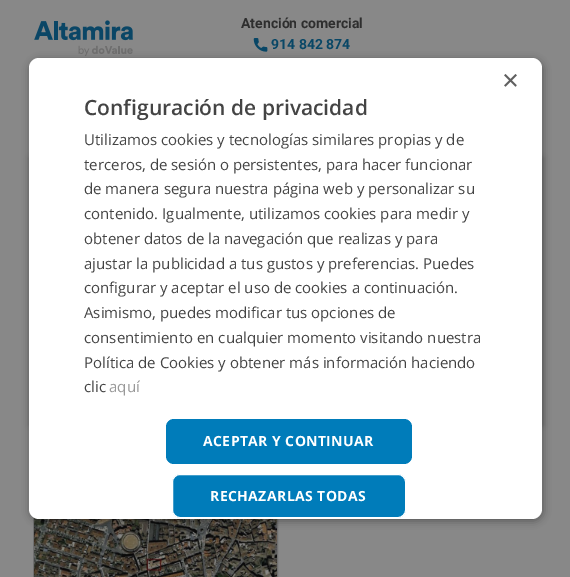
%!PS
<< /PageSize [570 577] /PageUsesTransparency true >> setpagedevice
/mt/moveto load def
/fl/fill load def
/st/stroke load def
/gs/gsave load def
/gr/grestore load def
/co { dup -16 bitshift 255 div exch dup -8 bitshift 255 and 255 div exch 255 and 255 div setrgbcolor } def
/fn { [ exch dup neg 0 0 3 -1 roll 0 0 ] selectfont } def
/tx { co fn moveto show } def
/bx { co rectfill } def
/al { dup .setfillconstantalpha .setstrokeconstantalpha } def
/rr { 5 dict begin { /r /h /w /y /x } { exch def } forall
  x r add y moveto x w add y 2 copy h add r arct x w add y h add x 1 index r arct
  x y h add x y r arct x y 2 copy exch w add exch r arct closepath end } def
/sh { 12 dict begin { /a /b /q /h /w /y /x } { exch def } forall gsave /was 0 def
  9 -2 -9 { dup b mul 4 div /e exch def 1 sub .425 mul 2.718 exch exp 1 add a .99 .min exch div /now exch def
    1 1 now sub 1 was sub div sub al /was now def
    w h .min e 2 mul add 0 gt { x e sub y e sub w e 2 mul add h e 2 mul add
      q e add b .6 mul add w h .min 2 div e add .min 0 .max rr fill } if } for grestore end } def
/im { 5 dict begin { /h /w /y /x /name } { exch def } forall
  gsave x y translate w h scale
  w h 8 [w 0 0 h 0 0] name (r) file false 3 colorimage grestore end } def
0 .pushpdf14devicefilter
0 577 translate 1 -1 scale
4 setmiterlimit
0 0 570 577 16#888888 bx
(media/1.raw) 34 20 99 36 im
(media/2.raw) 253 38 15 14 im
16#6F6F6F co
30 158 513 267 0 3 1 sh
33.5 474.5 244 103 rectstroke
(media/3.raw) 34 517 243 60 im
16#000000 co
30 60 513 461 10 4 .35 sh
16#FFFFFF co
29 58 513 461 10 rr fl
16#007CBA co
166 419 246 45 8 rr fl
172.5 474.5 233 43 7.5 rr gs fl gr
16#FFFFFF co
st
(Atención comercial) 241 28 /Roboto-Bold 14 16#2E2E2E tx
(914 842 874) 271 49 /Roboto-Bold 14 16#094766 tx
(×) 502 90 /LiberationSans-Regular 29 16#606060 tx
(Configuración de privacidad) 84 115 /OpenSans-SemiBold 21 16#444444 tx
(Utilizamos cookies y tecnologías similares propias y de) 84 145 /OpenSans-Regular 15 16#444444 tx
(terceros, de sesión o persistentes, para hacer funcionar) 84 170 /OpenSans-Regular 15 16#444444 tx
(de manera segura nuestra página web y personalizar su) 84 194 /OpenSans-Regular 15 16#444444 tx
(contenido. Igualmente, utilizamos cookies para medir y) 84 219 /OpenSans-Regular 15 16#444444 tx
(obtener datos de la navegación que realizas y para) 84 244 /OpenSans-Regular 15 16#444444 tx
(ajustar la publicidad a tus gustos y preferencias. Puedes) 84 269 /OpenSans-Regular 15 16#444444 tx
(configurar y aceptar el uso de cookies a continuación.) 84 293 /OpenSans-Regular 15 16#444444 tx
(Asimismo, puedes modificar tus opciones de) 84 318 /OpenSans-Regular 15 16#444444 tx
(consentimiento en cualquier momento visitando nuestra) 84 343 /OpenSans-Regular 15 16#444444 tx
(Política de Cookies y obtener más información haciendo) 84 368 /OpenSans-Regular 15 16#444444 tx
(clic) 84 392 /OpenSans-Regular 15 16#444444 tx
(aquí) 109 392 /OpenSans-Regular 15 16#999999 tx
/OpenSans-Bold 14 fn
16#FFFFFF co
203 446 mt .4 0 (ACEPTAR Y CONTINUAR) ashow
210 501 mt .4 0 (RECHAZARLAS TODAS) ashow
.poppdf14devicefilter showpage
